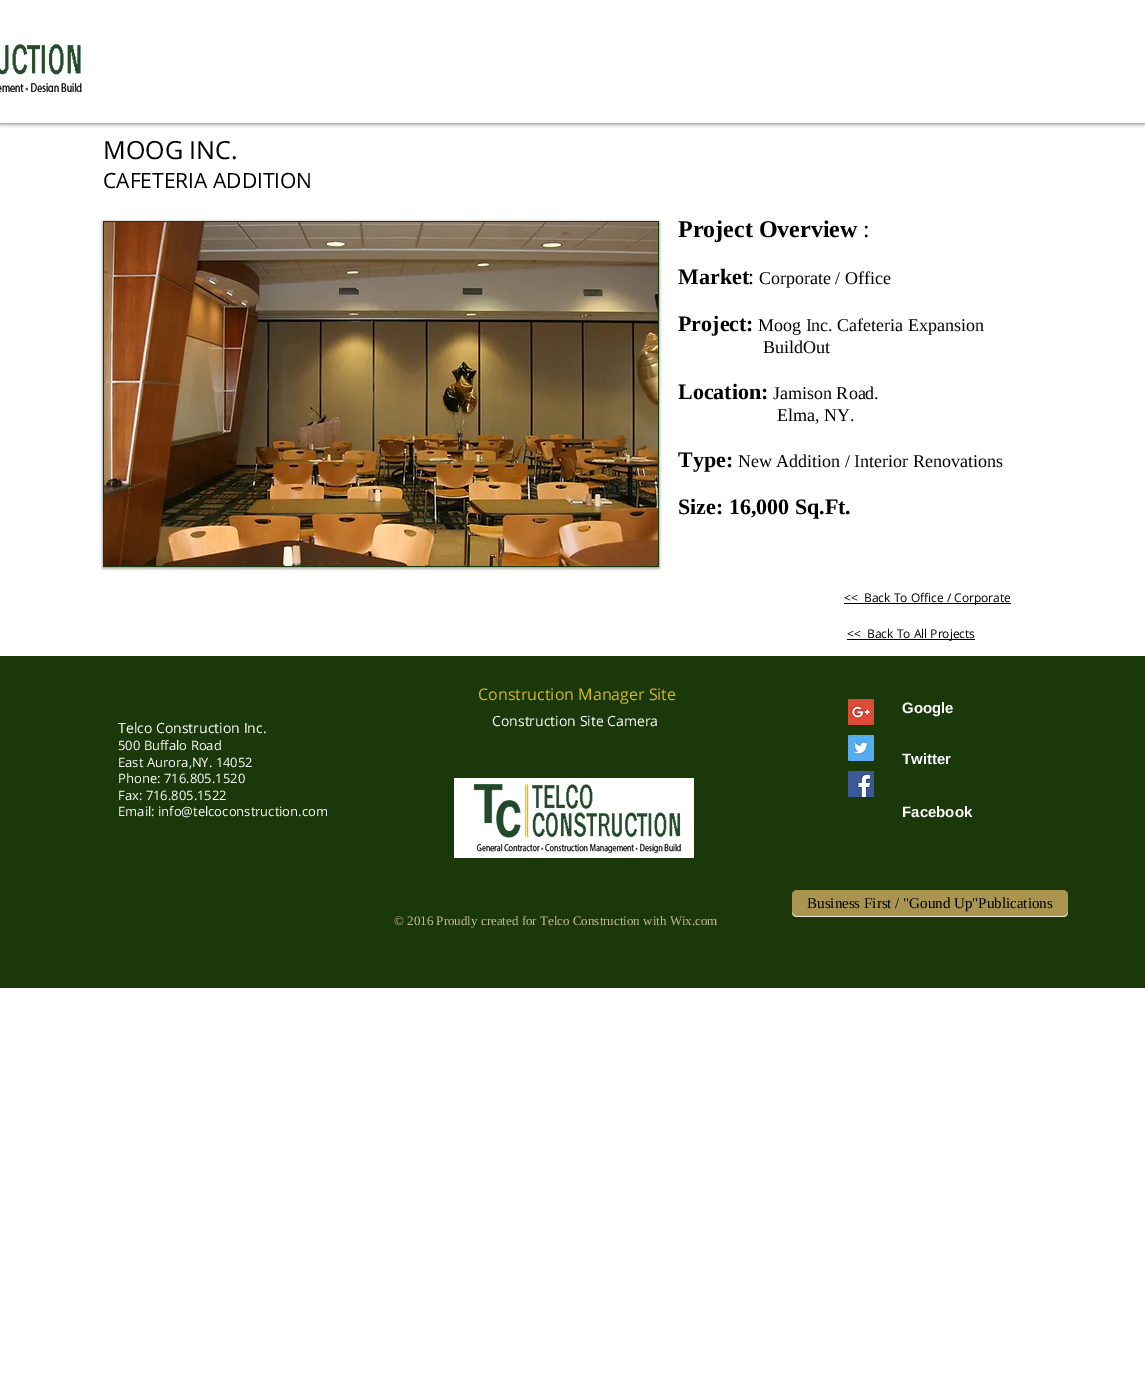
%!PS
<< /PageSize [1145 1378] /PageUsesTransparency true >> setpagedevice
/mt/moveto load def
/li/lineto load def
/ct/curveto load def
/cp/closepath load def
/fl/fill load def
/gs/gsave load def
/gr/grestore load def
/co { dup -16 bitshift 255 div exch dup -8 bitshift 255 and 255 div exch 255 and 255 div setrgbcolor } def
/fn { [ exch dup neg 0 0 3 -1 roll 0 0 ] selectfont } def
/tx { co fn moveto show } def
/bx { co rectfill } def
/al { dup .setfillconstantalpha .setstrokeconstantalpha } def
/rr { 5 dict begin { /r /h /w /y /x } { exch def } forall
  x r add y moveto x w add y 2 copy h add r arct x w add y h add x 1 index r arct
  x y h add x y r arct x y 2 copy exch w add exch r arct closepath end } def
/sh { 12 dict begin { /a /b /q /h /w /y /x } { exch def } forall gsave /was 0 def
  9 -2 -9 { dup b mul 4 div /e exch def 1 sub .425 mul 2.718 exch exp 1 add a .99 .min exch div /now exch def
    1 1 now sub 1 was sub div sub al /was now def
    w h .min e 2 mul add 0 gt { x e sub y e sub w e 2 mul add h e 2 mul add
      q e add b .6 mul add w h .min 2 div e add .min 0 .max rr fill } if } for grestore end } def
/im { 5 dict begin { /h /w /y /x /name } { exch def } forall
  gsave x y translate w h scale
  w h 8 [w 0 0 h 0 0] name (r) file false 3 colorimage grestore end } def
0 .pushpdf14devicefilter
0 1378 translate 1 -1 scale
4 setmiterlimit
0 0 1145 1378 16#FFFFFF bx
gs
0 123 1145 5 rectclip
16#000000 co
0 0 1145 123 0 2.5 .7 sh
gr
(media/1.raw) 0 42 83 50 im
16#000000 co
103 222 556 346 0 1.5 .5 sh
103 221 556 346 16#1A380A bx
(media/2.raw) 104 222 554 344 im
844 603 167 1 16#000000 bx
847 639 128 1 16#000000 bx
0 656 1145 332 16#1A380A bx
(media/3.raw) 848 699 26 26 im
(media/4.raw) 848 735 26 26 im
(media/5.raw) 848 771 26 26 im
454 778 240 80 16#FFFFFF bx
(media/6.raw) 473 784 208 69 im
16#AA9550 co
792 890 276 27 5 rr fl
0.75 al
16#FFFFFF co
792 911 mt 792 912 li 792 915 794 917 797 917 ct 1063 917 li 1066 917 1068 915 1068 912 ct 1068 911 li 1068 914 1066 916 1063 916 ct 797 916 li 794 916 792 914 792 911 ct cp fl
1 al
(MOOG INC.) 103 159 /OpenSans-Regular 25 16#000000 tx
(CAFETERIA ADDITION) 103 188 /OpenSans-Regular 21 16#000000 tx
(Project Overview) 678 237 /LiberationSerif-Bold 24 16#000000 tx
(:) 863 237 /LiberationSerif-Regular 24 16#000000 tx
(Market) 678 284 /LiberationSerif-Bold 22 16#000000 tx
(:) 748 284 /LiberationSerif-Regular 22 16#000000 tx
(Corporate / Office) 759 284 /LiberationSerif-Regular 18 16#000000 tx
(Project:) 678 331 /LiberationSerif-Bold 22 16#000000 tx
(Moog Inc. Cafeteria Expansion) 758 331 /LiberationSerif-Regular 18 16#000000 tx
(BuildOut) 763 353 /LiberationSerif-Regular 18 16#000000 tx
(Location:) 678 399 /LiberationSerif-Bold 22 16#000000 tx
(Jamison Road.) 773 399 /LiberationSerif-Regular 18 16#000000 tx
(Elma, NY.) 777 421 /LiberationSerif-Regular 18 16#000000 tx
(Type:) 678 467 /LiberationSerif-Bold 22 16#000000 tx
(New Addition / Interior Renovations) 738 467 /LiberationSerif-Regular 18 16#000000 tx
(Size: 16,000 Sq.Ft.) 678 514 /LiberationSerif-Bold 22 16#000000 tx
(<<  Back To Office / Corporate) 844 602 /OpenSans-Regular 12 16#000000 tx
(<<  Back To All Projects) 847 638 /OpenSans-Regular 12 16#000000 tx
(Construction Manager Site) 478 700 /OpenSans-Regular 16 16#D6B822 tx
(Google) 902 713 /LiberationSans-Bold 15 16#FFFFFF tx
(Telco Construction Inc.) 118 733 /OpenSans-Regular 14 16#FFFFFF tx
(500 Buffalo Road) 118 750 /OpenSans-Regular 13 16#FFFFFF tx
(East Aurora,NY. 14052) 118 767 /OpenSans-Regular 13 16#FFFFFF tx
(Phone: 716.805.1520) 118 783 /OpenSans-Regular 13 16#FFFFFF tx
(Fax: 716.805.1522) 118 800 /OpenSans-Regular 13 16#FFFFFF tx
(Email: info@telcoconstruction.com) 118 816 /OpenSans-Regular 13 16#FFFFFF tx
(Construction Site Camera) 492 726 /OpenSans-Regular 14 16#FFFFFF tx
(Twitter) 902 764 /LiberationSans-Bold 15 16#FFFFFF tx
(Facebook) 902 817 /LiberationSans-Bold 15 16#FFFFFF tx
(Business First / "Gound Up"Publications) 807 908 /LiberationSerif-Regular 15 16#000000 tx
(© 2016 Proudly created for Telco Construction with Wix.com) 394 925 /LiberationSerif-Regular 13 16#C6BA92 tx
.poppdf14devicefilter showpage
